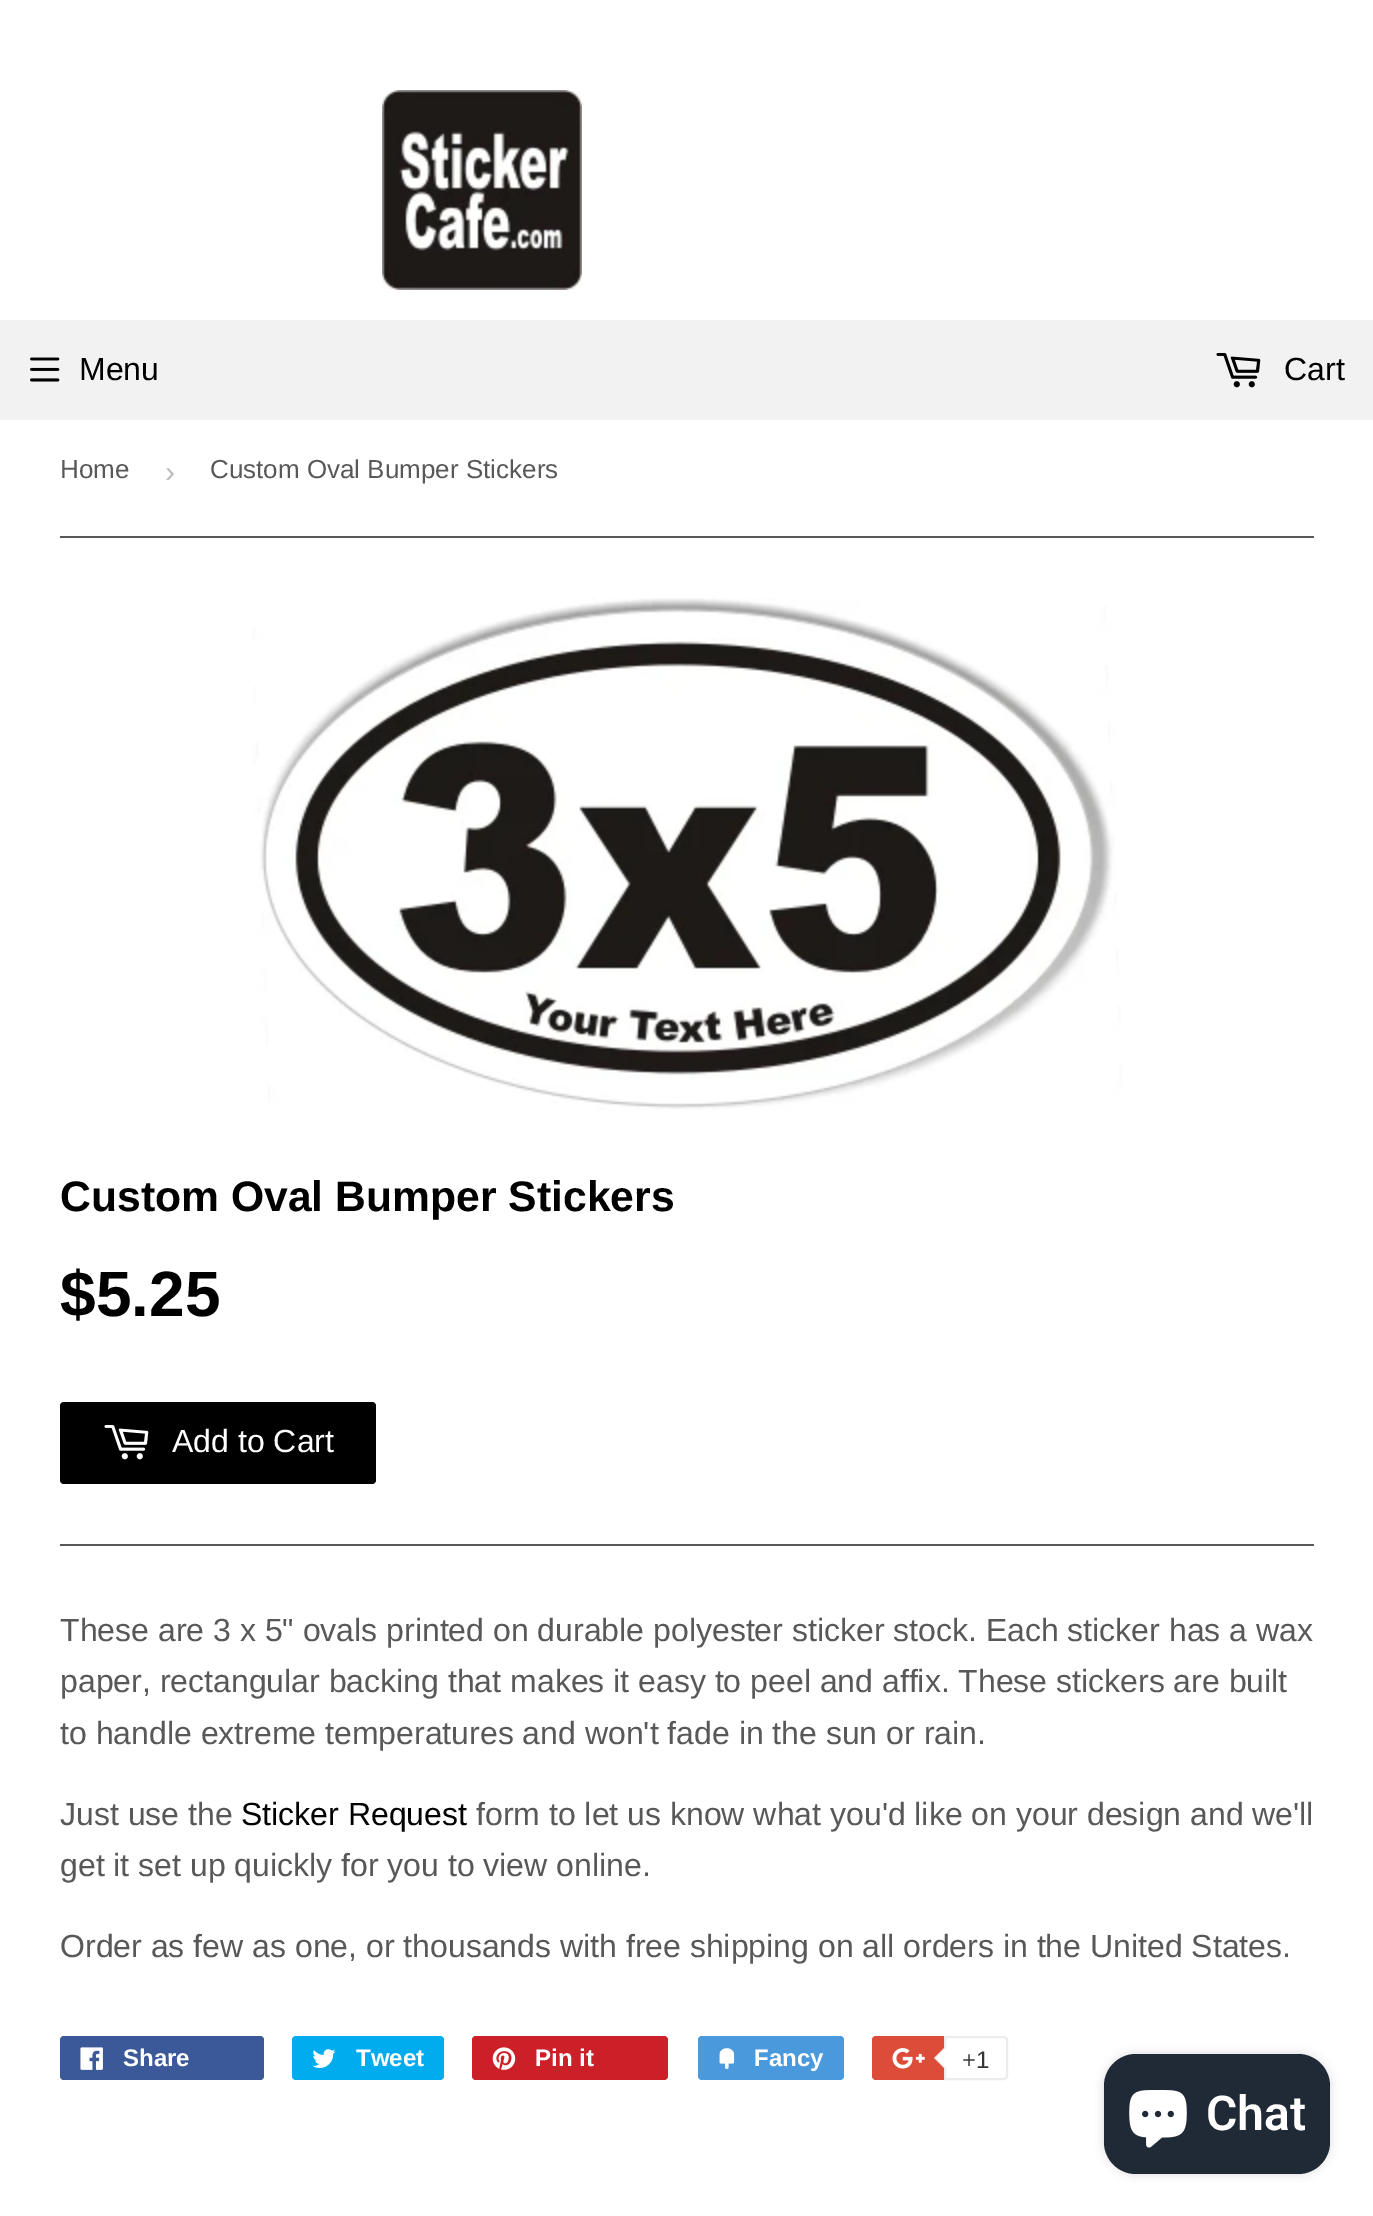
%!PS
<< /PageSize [1373 2216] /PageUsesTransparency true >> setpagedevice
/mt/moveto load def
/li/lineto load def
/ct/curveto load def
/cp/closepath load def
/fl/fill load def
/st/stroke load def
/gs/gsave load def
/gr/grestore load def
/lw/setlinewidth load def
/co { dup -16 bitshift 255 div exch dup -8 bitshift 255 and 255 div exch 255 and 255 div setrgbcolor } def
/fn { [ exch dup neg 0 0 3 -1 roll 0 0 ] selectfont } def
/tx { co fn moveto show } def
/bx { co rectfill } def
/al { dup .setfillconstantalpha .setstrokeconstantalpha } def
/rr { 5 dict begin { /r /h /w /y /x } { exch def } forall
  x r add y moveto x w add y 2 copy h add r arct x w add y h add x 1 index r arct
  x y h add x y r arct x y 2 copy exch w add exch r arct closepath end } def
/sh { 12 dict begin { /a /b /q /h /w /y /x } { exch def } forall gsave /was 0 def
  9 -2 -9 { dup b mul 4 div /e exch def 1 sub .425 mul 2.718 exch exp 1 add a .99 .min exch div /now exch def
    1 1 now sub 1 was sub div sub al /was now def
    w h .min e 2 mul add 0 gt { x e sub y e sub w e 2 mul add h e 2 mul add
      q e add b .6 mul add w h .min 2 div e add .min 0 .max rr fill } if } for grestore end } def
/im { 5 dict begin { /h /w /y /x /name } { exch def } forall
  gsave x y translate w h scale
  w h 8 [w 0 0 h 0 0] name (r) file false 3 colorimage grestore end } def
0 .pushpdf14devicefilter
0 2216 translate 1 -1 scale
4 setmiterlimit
0 0 1373 2216 16#FFFFFF bx
(media/1.raw) 382 90 200 200 im
0 320 1373 100 16#F2F2F2 bx
(media/2.raw) 30 357 30 25 im
(media/3.raw) 1216 353 45 35 im
60 536 1254 2 16#585858 bx
(media/4.raw) 252 598 870 512 im
16#000000 co
60 1402 316 82 4 rr fl
(media/5.raw) 104 1425 45 35 im
60 1544 1254 2 16#585858 bx
16#3B5998 co
60 2036 204 44 4 rr fl
(media/6.raw) 80 2047 23 23 im
16#00ACED co
292 2036 152 44 4 rr fl
(media/7.raw) 312 2049 24 19 im
16#CB2027 co
472 2036 196 44 4 rr fl
(media/8.raw) 492 2047 24 23 im
16#4999DC co
698 2036 146 44 4 rr fl
(media/9.raw) 719 2048 16 21 im
16#DD4B39 co
872 2036 132 44 4 rr fl
(media/10.raw) 892 2048 33 21 im
16#FFFFFF co
945 2037 mt 1004 2037 li 1005.5 2037 1007 2038.5 1007 2040 ct 1007 2076 li 1007 2077.5 1005.5 2079 1004 2079 ct 945 2079 li cp gs fl gr
16#ECECEC co
2 lw
st
946 2046 mt 946 2070 li 934 2058 li cp fl
16#FFFFFF co
948 2046 mt 948 2070 li 936 2058 li cp fl
16#000000 co
1104 2054 226 120 32 5 .15 sh
16#202A36 co
1104 2054 226 120 32 rr fl
(media/11.raw) 1129 2090 58 58 im
(Menu) 79 380 /LiberationSans-Regular 32 16#000000 tx
(Cart) 1284 380 /LiberationSans-Regular 32 16#000000 tx
(Home) 60 478 /LiberationSans-Regular 26 16#585858 tx
(›) 165 482 /LiberationSans-Regular 30 16#BBBBBB tx
(Custom Oval Bumper Stickers) 210 478 /LiberationSans-Regular 26 16#585858 tx
(Custom Oval Bumper Stickers) 60 1211 /LiberationSans-Bold 42.7 16#000000 tx
($5.25) 60 1316 /LiberationSans-Bold 64 16#000000 tx
(Add to Cart) 172 1452 /LiberationSans-Regular 32 16#FFFFFF tx
(These are 3 x 5" ovals printed on durable polyester sticker stock. Each sticker has a wax) 60 1641 /LiberationSans-Regular 32 16#585858 tx
(paper, rectangular backing that makes it easy to peel and affix. These stickers are built) 60 1692 /LiberationSans-Regular 32 16#585858 tx
(to handle extreme temperatures and won't fade in the sun or rain.) 60 1744 /LiberationSans-Regular 32 16#585858 tx
(Just use the) 60 1825 /LiberationSans-Regular 32 16#585858 tx
(Sticker Request) 241 1825 /LiberationSans-Regular 32 16#000000 tx
(form to let us know what you'd like on your design and we'll) 476 1825 /LiberationSans-Regular 32 16#585858 tx
(get it set up quickly for you to view online.) 60 1876 /LiberationSans-Regular 32 16#585858 tx
(Order as few as one, or thousands with free shipping on all orders in the United States.) 60 1957 /LiberationSans-Regular 32 16#585858 tx
(Share) 123 2066 /LiberationSans-Bold 24 16#FFFFFF tx
(Tweet) 356 2066 /LiberationSans-Bold 24 16#FFFFFF tx
(Pin it) 535 2066 /LiberationSans-Bold 24 16#FFFFFF tx
(Fancy) 754 2066 /LiberationSans-Bold 24 16#FFFFFF tx
(+1) 962 2068 /LiberationSans-Regular 24 16#333333 tx
(Chat) 1206 2130 /Roboto-SemiBold 48 16#FFFFFF tx
.poppdf14devicefilter showpage
